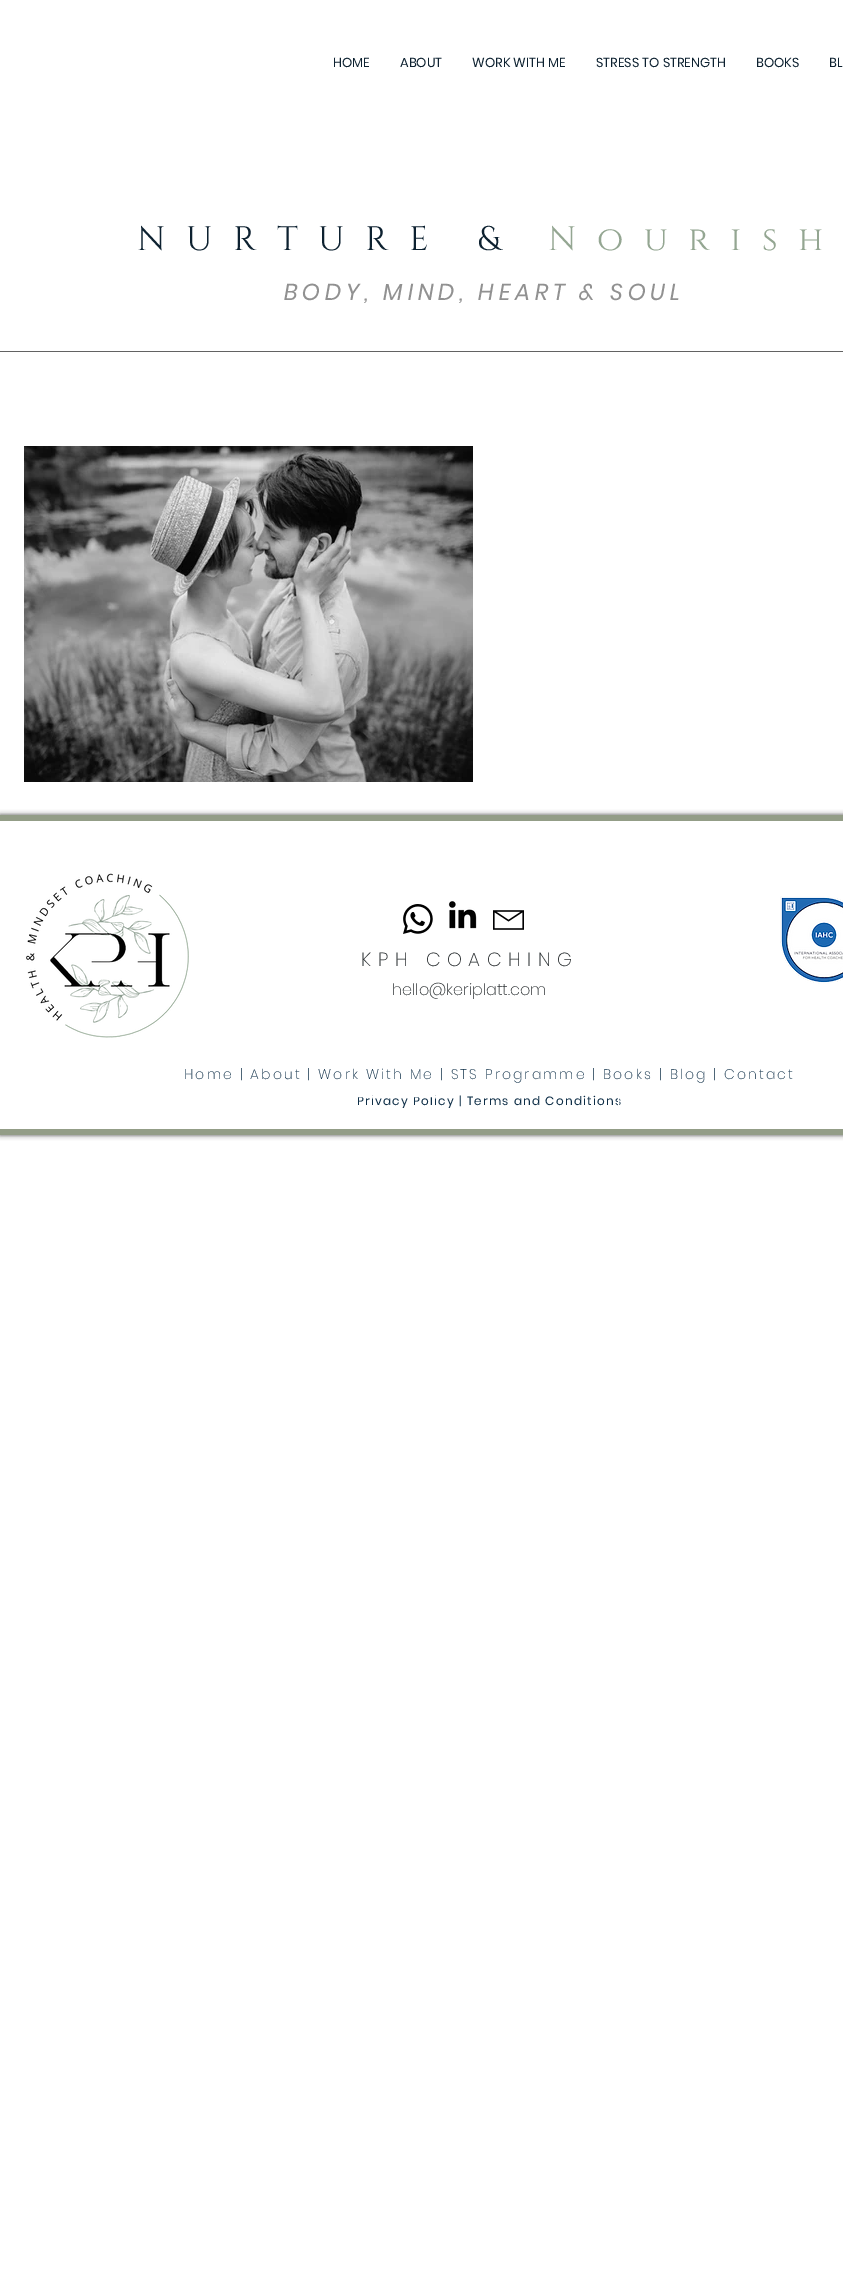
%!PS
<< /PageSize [843 2281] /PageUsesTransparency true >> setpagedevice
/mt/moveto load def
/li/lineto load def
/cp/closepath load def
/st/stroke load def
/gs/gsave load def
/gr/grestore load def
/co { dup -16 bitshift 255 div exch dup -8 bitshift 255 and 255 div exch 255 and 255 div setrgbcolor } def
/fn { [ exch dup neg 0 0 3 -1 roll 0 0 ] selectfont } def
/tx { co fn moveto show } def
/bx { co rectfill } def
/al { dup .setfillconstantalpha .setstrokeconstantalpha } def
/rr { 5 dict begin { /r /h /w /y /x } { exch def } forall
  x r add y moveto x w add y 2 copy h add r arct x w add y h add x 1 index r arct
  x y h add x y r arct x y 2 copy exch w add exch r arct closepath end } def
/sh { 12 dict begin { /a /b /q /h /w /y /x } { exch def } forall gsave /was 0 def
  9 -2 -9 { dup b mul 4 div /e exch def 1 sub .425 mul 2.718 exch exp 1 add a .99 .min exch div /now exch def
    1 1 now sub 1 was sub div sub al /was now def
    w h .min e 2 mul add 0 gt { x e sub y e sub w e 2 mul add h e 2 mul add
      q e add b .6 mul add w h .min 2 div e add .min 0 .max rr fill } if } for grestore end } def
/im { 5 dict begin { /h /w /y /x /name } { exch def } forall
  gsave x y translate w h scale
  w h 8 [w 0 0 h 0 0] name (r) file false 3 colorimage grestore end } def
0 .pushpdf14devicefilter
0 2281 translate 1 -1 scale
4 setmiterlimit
0 0 843 2281 16#FFFFFF bx
0 351 843 1 16#626262 bx
(media/1.raw) 24 446 449 336 im
gs
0 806 mt 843 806 li 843 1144 li 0 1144 li cp 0 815 mt 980 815 li 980 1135 li 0 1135 li cp eoclip newpath
16#000000 co
0 815 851 320 0 2.5 .7 sh
gr
0 815 843 6 16#939D87 bx
0 1129 843 6 16#939D87 bx
(media/2.raw) 26 873 163 165 im
(media/3.raw) 403 904 30 30 im
(media/4.raw) 448 901 29 28 im
16#FFFFFF co
408.5 909.5 17 19 6.5 rr st
(media/5.raw) 493 910 31 20 im
(media/6.raw) 780 896 63 88 im
(HOME) 333 67 /Poppins-Regular 13 16#0D2130 tx
(ABOUT) 400 67 /Poppins-Regular 13 16#0D2130 tx
(WORK WITH ME) 472 67 /Poppins-Regular 13 16#0D2130 tx
(STRESS TO STRENGTH) 596 67 /Poppins-Regular 13 16#0D2130 tx
(BOOKS) 756 67 /Poppins-Regular 13 16#0D2130 tx
(BL) 829 67 /Poppins-Regular 13 16#0D2130 tx
/Cinzel-Regular 34 fn
137 250 mt 20.5 0 (NURTURE &) ashow
16#94A692 co
548 250 mt 20.5 0 (Nourish) ashow
/Poppins-Italic 23 fn
16#919191 co
284 300 mt 4.6 0 (BODY, MIND, HEART & SOUL) ashow
/Poppins-ExtraLight 19 fn
16#2B3032 co
361 966 mt 6.6 0 (KPH COACHING) ashow
(hello@keriplatt.com) 392 995 /Poppins-ExtraLight 16 16#2B3032 tx
/Poppins-ExtraLight 14 fn
16#0E2E47 co
184 1079 mt 2.1 0 (Home | About | Work With Me | STS Programme | Books | Blog | Contact) ashow
/Poppins-Regular 12 fn
357 1105 mt 1.2 0 (Privacy Policy | Terms and Conditions) ashow
16#FFFFFF co
352.5 1096.5 102 21 rectstroke
462.5 1089.5 156 21 rectstroke
.poppdf14devicefilter showpage
